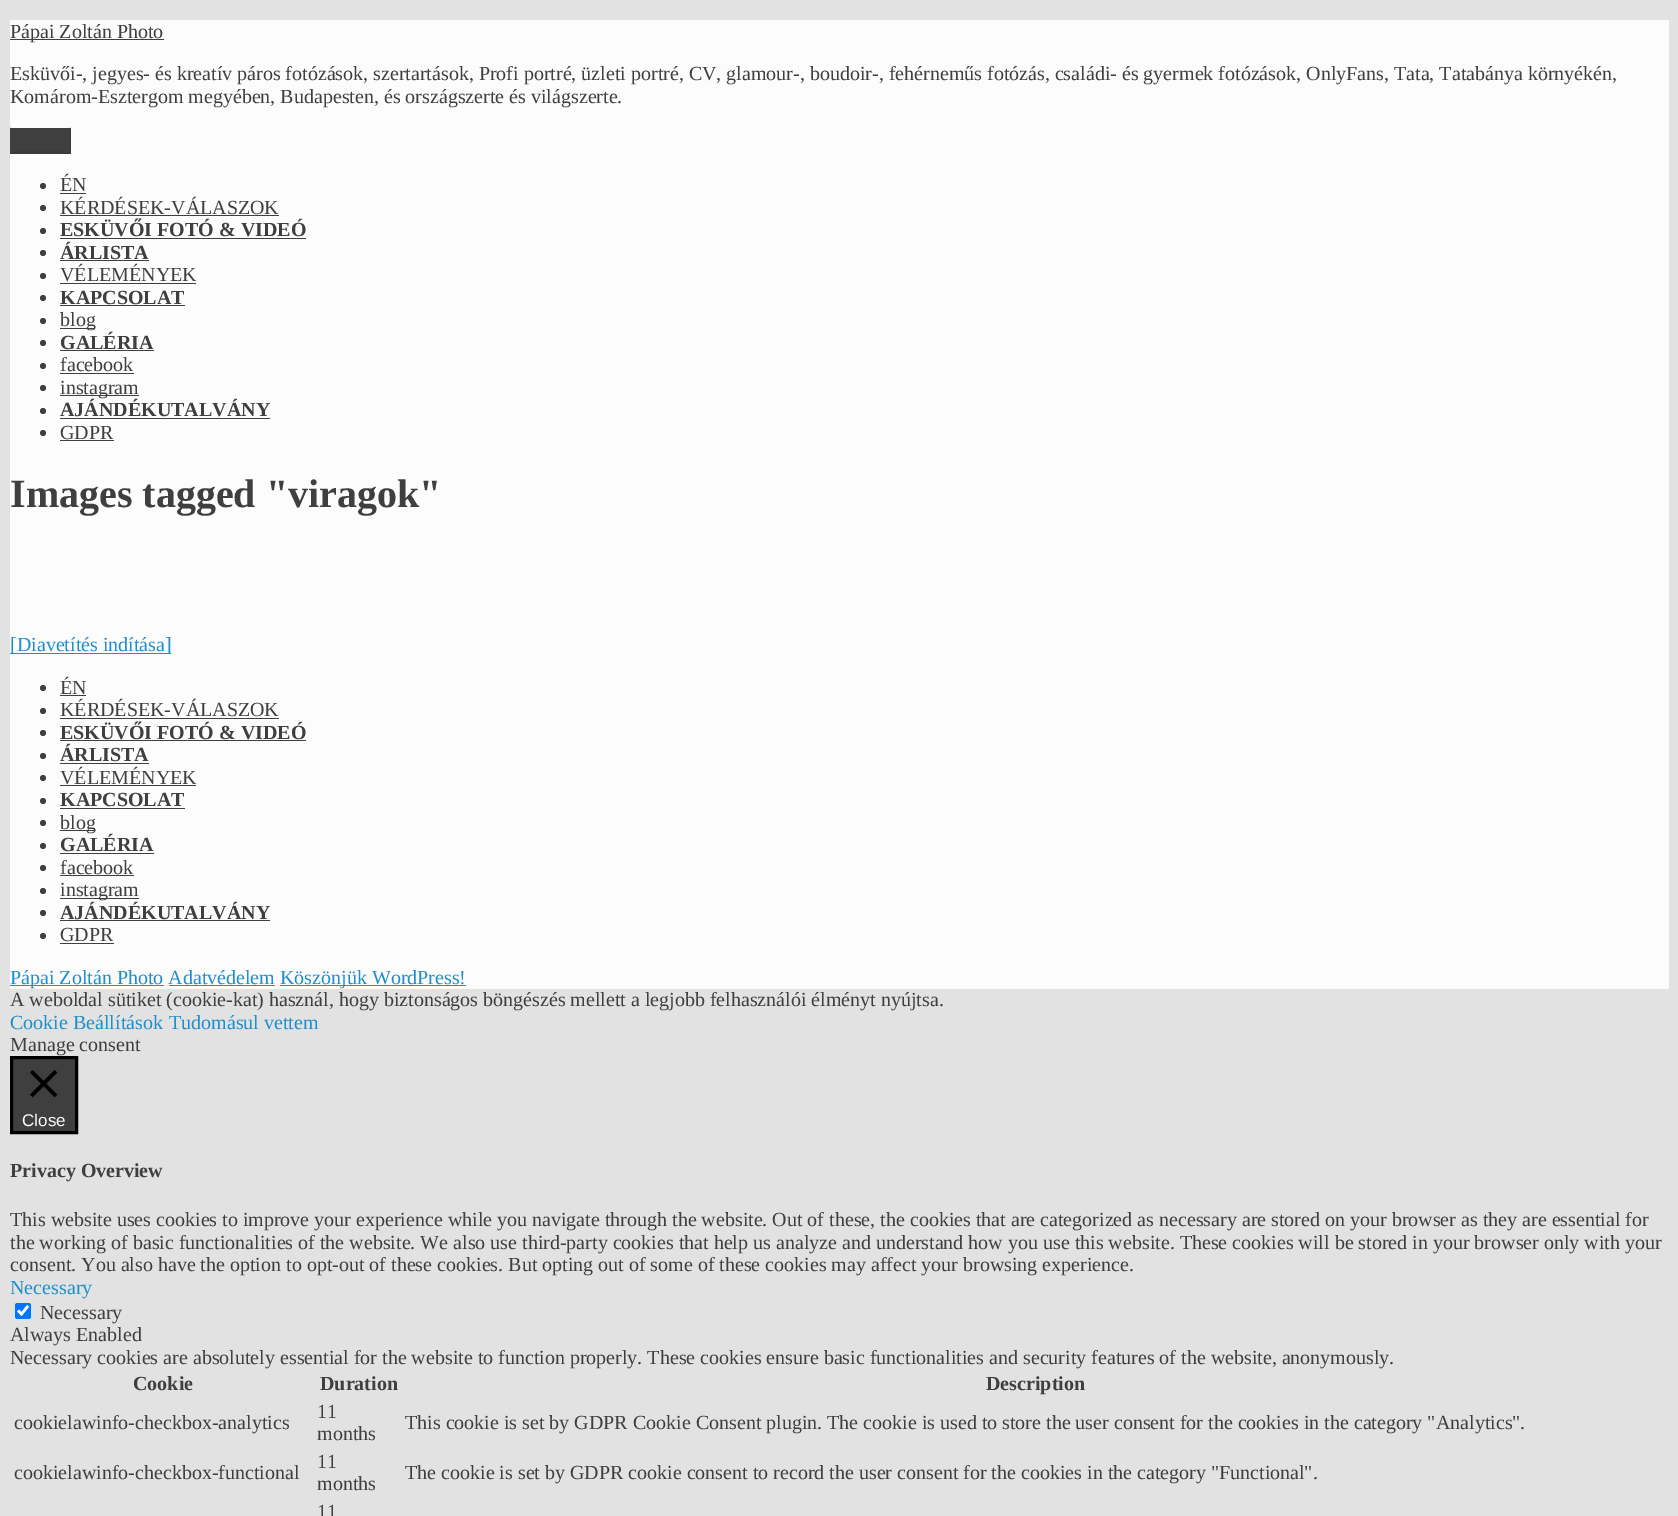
%!PS
<< /PageSize [1678 1516] >> setpagedevice
/mt/moveto load def
/li/lineto load def
/cp/closepath load def
/fl/fill load def
/st/stroke load def
/gs/gsave load def
/gr/grestore load def
/lw/setlinewidth load def
/co { dup -16 bitshift 255 div exch dup -8 bitshift 255 and 255 div exch 255 and 255 div setrgbcolor } def
/fn { [ exch dup neg 0 0 3 -1 roll 0 0 ] selectfont } def
/tx { co fn moveto show } def
/bx { co rectfill } def
/ci { newpath 0 360 arc closepath } def
/rr { 5 dict begin { /r /h /w /y /x } { exch def } forall
  x r add y moveto x w add y 2 copy h add r arct x w add y h add x 1 index r arct
  x y h add x y r arct x y 2 copy exch w add exch r arct closepath end } def
/im { 5 dict begin { /h /w /y /x /name } { exch def } forall
  gsave x y translate w h scale
  w h 8 [w 0 0 h 0 0] name (r) file false 3 colorimage grestore end } def
0 1516 translate 1 -1 scale
4 setmiterlimit
0 0 1678 1516 16#E2E2E2 bx
10 20 1659 969 16#FCFCFC bx
10 39 154 1 16#3F3F3F bx
10 128 61 26 16#3F3F3F bx
16#3B3B3B co
71 127.5 mt 71 154 li 69 151 li 69 130 li cp fl
71 154 mt 10 154 li 12 151 li 69 151 li cp fl
16#3F3F3F co
10 154 mt 10 127.5 li 12.5 130 li 12.5 151 li cp fl
43 186 3 ci fl
60 193 26 1 16#3F3F3F bx
43 208 3 ci fl
60 215 219 1 16#3F3F3F bx
43 231 3 ci fl
60 238 246 1 16#3F3F3F bx
43 253 3 ci fl
60 260 89 1 16#3F3F3F bx
43 276 3 ci fl
60 283 136 1 16#3F3F3F bx
43 298 3 ci fl
60 305 125 1 16#3F3F3F bx
43 321 3 ci fl
60 328 35 1 16#3F3F3F bx
43 343 3 ci fl
60 350 94 1 16#3F3F3F bx
43 366 3 ci fl
60 373 74 1 16#3F3F3F bx
43 388 3 ci fl
60 395 79 1 16#3F3F3F bx
43 411 3 ci fl
60 418 210 1 16#3F3F3F bx
43 433 3 ci fl
60 440 54 1 16#3F3F3F bx
10 653 161 1 16#1E8FCC bx
16#3F3F3F co
43 688 3 ci fl
60 695 26 1 16#3F3F3F bx
43 711 3 ci fl
60 718 219 1 16#3F3F3F bx
43 733 3 ci fl
60 740 246 1 16#3F3F3F bx
43 756 3 ci fl
60 763 89 1 16#3F3F3F bx
43 778 3 ci fl
60 785 136 1 16#3F3F3F bx
43 801 3 ci fl
60 808 125 1 16#3F3F3F bx
43 823 3 ci fl
60 830 35 1 16#3F3F3F bx
43 846 3 ci fl
60 853 94 1 16#3F3F3F bx
43 868 3 ci fl
60 875 74 1 16#3F3F3F bx
43 891 3 ci fl
60 898 79 1 16#3F3F3F bx
43 913 3 ci fl
60 920 210 1 16#3F3F3F bx
43 936 3 ci fl
60 943 54 1 16#3F3F3F bx
10 985 154 1 16#1E8FCC bx
280 985 186 1 16#1E8FCC bx
169 985 106 1 16#1E8FCC bx
16#3F3F3F co
11.5 1057.5 mt 76.5 1057.5 li 76.5 1132.5 li 11.5 1132.5 li cp gs fl gr
16#000000 co
3 lw
st
(media/1.raw) 30 1070 28 28 im
16#0075FF co
15 1303 16 16 2.5 rr fl
16#FFFFFF co
2.6 lw
18 1310.5 mt 21.5 1314 li 28 1306 li st
(Pápai Zoltán Photo) 10 38 /LiberationSerif-Regular 20 16#3F3F3F tx
(Esküvői-, jegyes- és kreatív páros fotózások, szertartások, Profi portré, üzleti portré, CV, glamour-, boudoir-, fehérneműs fotózás, családi- és gyermek fotózások, OnlyFans, Tata, Tatabánya környékén,) 10 80 /LiberationSerif-Regular 20 16#3F3F3F tx
(Komárom-Esztergom megyében, Budapesten, és országszerte és világszerte.) 10 103 /LiberationSerif-Regular 20 16#3F3F3F tx
(ÉN) 60 191 /LiberationSerif-Regular 20 16#3F3F3F tx
(KÉRDÉSEK-VÁLASZOK) 60 214 /LiberationSerif-Regular 20 16#3F3F3F tx
(ESKÜVŐI FOTÓ & VIDEÓ) 60 236 /LiberationSerif-Bold 20 16#3F3F3F tx
(ÁRLISTA) 60 259 /LiberationSerif-Bold 20 16#3F3F3F tx
(VÉLEMÉNYEK) 60 281 /LiberationSerif-Regular 20 16#3F3F3F tx
(KAPCSOLAT) 60 304 /LiberationSerif-Bold 20 16#3F3F3F tx
(blog) 60 326 /LiberationSerif-Regular 20 16#3F3F3F tx
(GALÉRIA) 60 349 /LiberationSerif-Bold 20 16#3F3F3F tx
(facebook) 60 371 /LiberationSerif-Regular 20 16#3F3F3F tx
(instagram) 60 394 /LiberationSerif-Regular 20 16#3F3F3F tx
(AJÁNDÉKUTALVÁNY) 60 416 /LiberationSerif-Bold 20 16#3F3F3F tx
(GDPR) 60 439 /LiberationSerif-Regular 20 16#3F3F3F tx
(Images tagged "viragok") 10 507 /LiberationSerif-Bold 40 16#3F3F3F tx
([Diavetítés indítása]) 10 651 /LiberationSerif-Regular 20 16#1E8FCC tx
(ÉN) 60 694 /LiberationSerif-Regular 20 16#3F3F3F tx
(KÉRDÉSEK-VÁLASZOK) 60 716 /LiberationSerif-Regular 20 16#3F3F3F tx
(ESKÜVŐI FOTÓ & VIDEÓ) 60 739 /LiberationSerif-Bold 20 16#3F3F3F tx
(ÁRLISTA) 60 761 /LiberationSerif-Bold 20 16#3F3F3F tx
(VÉLEMÉNYEK) 60 784 /LiberationSerif-Regular 20 16#3F3F3F tx
(KAPCSOLAT) 60 806 /LiberationSerif-Bold 20 16#3F3F3F tx
(blog) 60 829 /LiberationSerif-Regular 20 16#3F3F3F tx
(GALÉRIA) 60 851 /LiberationSerif-Bold 20 16#3F3F3F tx
(facebook) 60 874 /LiberationSerif-Regular 20 16#3F3F3F tx
(instagram) 60 896 /LiberationSerif-Regular 20 16#3F3F3F tx
(AJÁNDÉKUTALVÁNY) 60 919 /LiberationSerif-Bold 20 16#3F3F3F tx
(GDPR) 60 941 /LiberationSerif-Regular 20 16#3F3F3F tx
(Pápai Zoltán Photo Adatvédelem) 10 984 /LiberationSerif-Regular 20 16#1E8FCC tx
(Köszönjük WordPress!) 280 984 /LiberationSerif-Regular 20 16#1E8FCC tx
(A weboldal sütiket \(cookie-kat\) használ, hogy biztonságos böngészés mellett a legjobb felhasználói élményt nyújtsa.) 10 1006 /LiberationSerif-Regular 20 16#3F3F3F tx
(Cookie Beállítások) 10 1029 /LiberationSerif-Regular 20 16#1E8FCC tx
(Tudomásul vettem) 169 1029 /LiberationSerif-Regular 20 16#1E8FCC tx
(Manage consent) 10 1051 /LiberationSerif-Regular 20 16#3F3F3F tx
(Close) 22 1126 /LiberationSans-Regular 17 16#FCFCFC tx
(Privacy Overview) 10 1177 /LiberationSerif-Bold 20 16#3F3F3F tx
(This website uses cookies to improve your experience while you navigate through the website. Out of these, the cookies that are categorized as necessary are stored on your browser as they are essential for) 10 1226 /LiberationSerif-Regular 20 16#3F3F3F tx
(the working of basic functionalities of the website. We also use third-party cookies that help us analyze and understand how you use this website. These cookies will be stored in your browser only with your) 10 1249 /LiberationSerif-Regular 20 16#3F3F3F tx
(consent. You also have the option to opt-out of these cookies. But opting out of some of these cookies may affect your browsing experience.) 10 1271 /LiberationSerif-Regular 20 16#3F3F3F tx
(Necessary) 10 1294 /LiberationSerif-Regular 20 16#1E8FCC tx
(Necessary) 40 1319 /LiberationSerif-Regular 20 16#3F3F3F tx
(Always Enabled) 10 1341 /LiberationSerif-Regular 20 16#3F3F3F tx
(Necessary cookies are absolutely essential for the website to function properly. These cookies ensure basic functionalities and security features of the website, anonymously.) 10 1364 /LiberationSerif-Regular 20 16#3F3F3F tx
(Cookie) 133 1390 /LiberationSerif-Bold 20 16#3F3F3F tx
(Duration) 320 1390 /LiberationSerif-Bold 20 16#3F3F3F tx
(Description) 986 1390 /LiberationSerif-Bold 20 16#3F3F3F tx
(cookielawinfo-checkbox-analytics) 14 1429 /LiberationSerif-Regular 20 16#3F3F3F tx
(11) 317 1418 /LiberationSerif-Regular 20 16#3F3F3F tx
(months) 317 1440 /LiberationSerif-Regular 20 16#3F3F3F tx
(This cookie is set by GDPR Cookie Consent plugin. The cookie is used to store the user consent for the cookies in the category "Analytics".) 405 1429 /LiberationSerif-Regular 20 16#3F3F3F tx
(cookielawinfo-checkbox-functional) 14 1479 /LiberationSerif-Regular 20 16#3F3F3F tx
(11) 317 1468 /LiberationSerif-Regular 20 16#3F3F3F tx
(months) 317 1490 /LiberationSerif-Regular 20 16#3F3F3F tx
(The cookie is set by GDPR cookie consent to record the user consent for the cookies in the category "Functional".) 405 1479 /LiberationSerif-Regular 20 16#3F3F3F tx
(11) 317 1518 /LiberationSerif-Regular 20 16#3F3F3F tx
showpage
